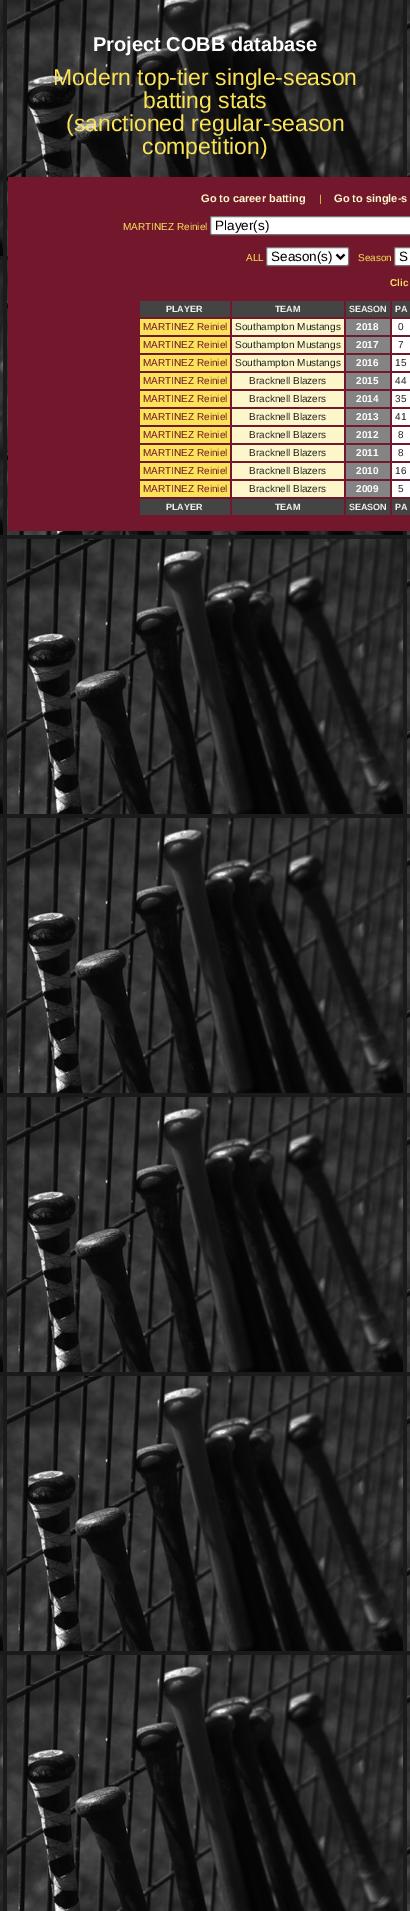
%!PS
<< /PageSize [410 1911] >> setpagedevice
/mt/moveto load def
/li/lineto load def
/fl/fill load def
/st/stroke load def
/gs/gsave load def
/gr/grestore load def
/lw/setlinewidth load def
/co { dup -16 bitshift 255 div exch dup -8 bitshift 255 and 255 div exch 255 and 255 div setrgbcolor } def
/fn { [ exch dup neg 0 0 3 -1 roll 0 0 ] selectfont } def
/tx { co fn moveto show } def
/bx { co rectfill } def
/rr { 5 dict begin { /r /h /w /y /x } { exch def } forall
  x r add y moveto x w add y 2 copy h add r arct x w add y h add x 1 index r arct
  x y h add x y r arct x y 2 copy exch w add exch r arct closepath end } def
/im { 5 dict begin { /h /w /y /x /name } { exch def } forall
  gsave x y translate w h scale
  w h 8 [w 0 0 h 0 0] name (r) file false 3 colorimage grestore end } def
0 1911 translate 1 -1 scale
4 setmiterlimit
0 0 410 1911 16#FFFFFF bx
(media/1.raw) 0 0 410 1911 im
8 177 402 354 16#73172D bx
16#FFFFFF co
210.5 216.5 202 18 1.5 rr gs fl gr
16#767676 co
st
16#FFFFFF co
266.5 247.5 82 18 1.5 rr gs fl gr
16#767676 co
st
16#000000 co
2 lw
336.5 254.5 mt 340.5 258.5 li 344.5 254.5 li st
16#FFFFFF co
394.5 247.5 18 18 1.5 rr gs fl gr
16#767676 co
1 lw
st
140 301 90 16 16#444444 bx
232 301 112 16 16#444444 bx
346 301 44 16 16#444444 bx
392 301 18 16 16#444444 bx
140 319 90 16 16#FAE358 bx
232 319 112 16 16#FDF6CB bx
346 319 44 16 16#848484 bx
392 319 18 16 16#FFFFFF bx
140 337 90 16 16#FAE358 bx
232 337 112 16 16#FDF6CB bx
346 337 44 16 16#848484 bx
392 337 18 16 16#FFFFFF bx
140 355 90 16 16#FAE358 bx
232 355 112 16 16#FDF6CB bx
346 355 44 16 16#848484 bx
392 355 18 16 16#FFFFFF bx
140 373 90 16 16#FAE358 bx
232 373 112 16 16#FDF6CB bx
346 373 44 16 16#848484 bx
392 373 18 16 16#FFFFFF bx
140 391 90 16 16#FAE358 bx
232 391 112 16 16#FDF6CB bx
346 391 44 16 16#848484 bx
392 391 18 16 16#FFFFFF bx
140 409 90 16 16#FAE358 bx
232 409 112 16 16#FDF6CB bx
346 409 44 16 16#848484 bx
392 409 18 16 16#FFFFFF bx
140 427 90 16 16#FAE358 bx
232 427 112 16 16#FDF6CB bx
346 427 44 16 16#848484 bx
392 427 18 16 16#FFFFFF bx
140 445 90 16 16#FAE358 bx
232 445 112 16 16#FDF6CB bx
346 445 44 16 16#848484 bx
392 445 18 16 16#FFFFFF bx
140 463 90 16 16#FAE358 bx
232 463 112 16 16#FDF6CB bx
346 463 44 16 16#848484 bx
392 463 18 16 16#FFFFFF bx
140 481 90 16 16#FAE358 bx
232 481 112 16 16#FDF6CB bx
346 481 44 16 16#848484 bx
392 481 18 16 16#FFFFFF bx
140 499 90 16 16#444444 bx
232 499 112 16 16#444444 bx
346 499 44 16 16#444444 bx
392 499 18 16 16#444444 bx
(Project COBB database) 93 51 /LiberationSans-Bold 20 16#FFFFFF tx
(Modern top-tier single-season) 53 85 /LiberationSans-Regular 23 16#FAE358 tx
(batting stats) 143 108 /LiberationSans-Regular 23 16#FAE358 tx
(\(sanctioned regular-season) 66 131 /LiberationSans-Regular 23 16#FAE358 tx
(competition\)) 142 154 /LiberationSans-Regular 23 16#FAE358 tx
(Go to career batting) 201 202 /LiberationSans-Bold 11 16#FDF6CB tx
(|) 319 202 /LiberationSans-Regular 10 16#FAE358 tx
(Go to single-s) 334 202 /LiberationSans-Bold 11 16#FDF6CB tx
(MARTINEZ Reiniel) 123 230 /LiberationSans-Regular 10 16#FAE358 tx
(Player\(s\)) 215 230 /LiberationSans-Regular 13.5 16#000000 tx
(ALL) 246 261 /LiberationSans-Regular 10 16#FAE358 tx
(Season\(s\)) 271 261 /LiberationSans-Regular 13.5 16#000000 tx
(Season) 358 261 /LiberationSans-Regular 10 16#FAE358 tx
(S) 399 261 /LiberationSans-Regular 13.5 16#000000 tx
(Clic) 390 286 /LiberationSans-Bold 10 16#FAE358 tx
(PLAYER) 166 312 /LiberationSans-Bold 9 16#EEEEEE tx
(TEAM) 275 312 /LiberationSans-Bold 9 16#EEEEEE tx
(SEASON) 349 312 /LiberationSans-Bold 9 16#EEEEEE tx
(PA) 395 312 /LiberationSans-Bold 9 16#EEEEEE tx
(MARTINEZ Reiniel) 143 330 /LiberationSans-Regular 10 16#73172D tx
(Southampton Mustangs) 235 330 /LiberationSans-Regular 10 16#212121 tx
(2018) 356 330 /LiberationSans-Bold 10 16#FFFFFF tx
(0) 398 330 /LiberationSans-Regular 10 16#212121 tx
(MARTINEZ Reiniel) 143 348 /LiberationSans-Regular 10 16#73172D tx
(Southampton Mustangs) 235 348 /LiberationSans-Regular 10 16#212121 tx
(2017) 356 348 /LiberationSans-Bold 10 16#FFFFFF tx
(7) 398 348 /LiberationSans-Regular 10 16#212121 tx
(MARTINEZ Reiniel) 143 366 /LiberationSans-Regular 10 16#73172D tx
(Southampton Mustangs) 235 366 /LiberationSans-Regular 10 16#212121 tx
(2016) 356 366 /LiberationSans-Bold 10 16#FFFFFF tx
(15) 395 366 /LiberationSans-Regular 10 16#212121 tx
(MARTINEZ Reiniel) 143 384 /LiberationSans-Regular 10 16#73172D tx
(Bracknell Blazers) 249 384 /LiberationSans-Regular 10 16#212121 tx
(2015) 356 384 /LiberationSans-Bold 10 16#FFFFFF tx
(44) 395 384 /LiberationSans-Regular 10 16#212121 tx
(MARTINEZ Reiniel) 143 402 /LiberationSans-Regular 10 16#73172D tx
(Bracknell Blazers) 249 402 /LiberationSans-Regular 10 16#212121 tx
(2014) 356 402 /LiberationSans-Bold 10 16#FFFFFF tx
(35) 395 402 /LiberationSans-Regular 10 16#212121 tx
(MARTINEZ Reiniel) 143 420 /LiberationSans-Regular 10 16#73172D tx
(Bracknell Blazers) 249 420 /LiberationSans-Regular 10 16#212121 tx
(2013) 356 420 /LiberationSans-Bold 10 16#FFFFFF tx
(41) 395 420 /LiberationSans-Regular 10 16#212121 tx
(MARTINEZ Reiniel) 143 438 /LiberationSans-Regular 10 16#73172D tx
(Bracknell Blazers) 249 438 /LiberationSans-Regular 10 16#212121 tx
(2012) 356 438 /LiberationSans-Bold 10 16#FFFFFF tx
(8) 398 438 /LiberationSans-Regular 10 16#212121 tx
(MARTINEZ Reiniel) 143 456 /LiberationSans-Regular 10 16#73172D tx
(Bracknell Blazers) 249 456 /LiberationSans-Regular 10 16#212121 tx
(2011) 356 456 /LiberationSans-Bold 10 16#FFFFFF tx
(8) 398 456 /LiberationSans-Regular 10 16#212121 tx
(MARTINEZ Reiniel) 143 474 /LiberationSans-Regular 10 16#73172D tx
(Bracknell Blazers) 249 474 /LiberationSans-Regular 10 16#212121 tx
(2010) 356 474 /LiberationSans-Bold 10 16#FFFFFF tx
(16) 395 474 /LiberationSans-Regular 10 16#212121 tx
(MARTINEZ Reiniel) 143 492 /LiberationSans-Regular 10 16#73172D tx
(Bracknell Blazers) 249 492 /LiberationSans-Regular 10 16#212121 tx
(2009) 356 492 /LiberationSans-Bold 10 16#FFFFFF tx
(5) 398 492 /LiberationSans-Regular 10 16#212121 tx
(PLAYER) 166 510 /LiberationSans-Bold 9 16#EEEEEE tx
(TEAM) 275 510 /LiberationSans-Bold 9 16#EEEEEE tx
(SEASON) 349 510 /LiberationSans-Bold 9 16#EEEEEE tx
(PA) 395 510 /LiberationSans-Bold 9 16#EEEEEE tx
showpage
